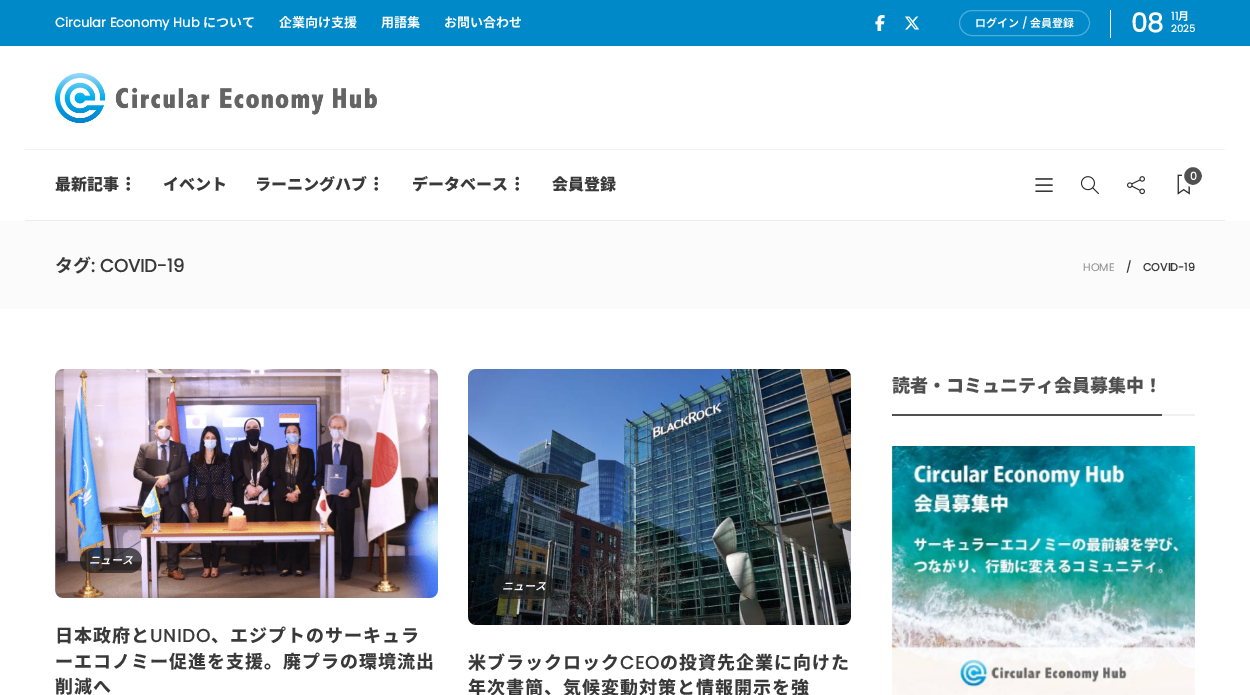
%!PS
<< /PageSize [1250 695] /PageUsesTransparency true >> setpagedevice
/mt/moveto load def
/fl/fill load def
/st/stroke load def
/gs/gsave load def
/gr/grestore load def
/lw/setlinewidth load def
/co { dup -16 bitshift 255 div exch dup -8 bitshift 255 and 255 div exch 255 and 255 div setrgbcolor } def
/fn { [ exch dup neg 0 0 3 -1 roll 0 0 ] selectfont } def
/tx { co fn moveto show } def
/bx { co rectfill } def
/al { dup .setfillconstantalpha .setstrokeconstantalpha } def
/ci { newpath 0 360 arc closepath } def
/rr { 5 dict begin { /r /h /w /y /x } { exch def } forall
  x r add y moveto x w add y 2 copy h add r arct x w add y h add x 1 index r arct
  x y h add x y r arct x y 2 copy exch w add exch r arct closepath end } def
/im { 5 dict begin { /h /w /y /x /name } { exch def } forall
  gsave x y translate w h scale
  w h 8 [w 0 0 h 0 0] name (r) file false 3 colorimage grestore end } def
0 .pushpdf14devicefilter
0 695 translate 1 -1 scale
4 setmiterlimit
0 0 1250 695 16#FFFFFF bx
0 0 1250 46 16#0089C9 bx
1110 10 1 28 16#FFFFFF bx
(media/1.raw) 875 15 10 16 im
(media/2.raw) 905 16 15 14 im
16#4DACD9 co
959.5 10.5 130 25 12.5 rr st
25 149 1200 1 16#F1F1F1 bx
(media/3.raw) 55 73 322 50 im
25 220 1200 1 16#EBEBEB bx
(media/4.raw) 126 176 4 15 im
(media/4.raw) 374 176 4 15 im
(media/4.raw) 515 176 4 15 im
(media/5.raw) 1035 178 18 14 im
(media/6.raw) 1080 176 19 19 im
(media/7.raw) 1127 176 18 19 im
(media/8.raw) 1177 174 13 21 im
16#505050 co
1193 176 10 ci gs fl gr
16#FFFFFF co
2 lw
st
0 221 1250 88 16#FBFBFB bx
1162 414 33 2 16#F0F0F0 bx
892 414 270 2 16#505050 bx
(media/9.raw) 891 446 304 249 im
(media/10.raw) 55 369 383 229 im
0.7 al
16#1C1C1C co
80 548 62 25 12.5 rr fl
1 al
(media/11.raw) 468 369 383 256 im
0.7 al
493 574 62 25 12.5 rr fl
1 al
(Circular Economy Hub) 55 27 /Poppins-Bold 13 16#FFFFFF tx
(について) 203 27 /NotoSansJP-Bold 13 16#FFFFFF tx
(企業向け支援) 279 27 /NotoSansJP-Bold 13 16#FFFFFF tx
(用語集) 381 27 /NotoSansJP-Bold 13 16#FFFFFF tx
(お問い合わせ) 444 27 /NotoSansJP-Bold 13 16#FFFFFF tx
(ログイン) 975 27 /NotoSansJP-Bold 11 16#FFFFFF tx
(/) 1022 27 /Poppins-Bold 11 16#FFFFFF tx
(会員登録) 1030 27 /NotoSansJP-Bold 11 16#FFFFFF tx
(08) 1131 32 /Poppins-Bold 26 16#FFFFFF tx
(11) 1171 20 /Poppins-Bold 11 16#FFFFFF tx
(月) 1178 20 /NotoSansJP-Bold 11 16#FFFFFF tx
(2025) 1171 32 /Poppins-Bold 10 16#FFFFFF tx
(最新記事) 55 190 /NotoSansJP-Black 16 16#393939 tx
(イベント) 163 190 /NotoSansJP-Black 16 16#393939 tx
(ラーニングハブ) 255 190 /NotoSansJP-Black 16 16#393939 tx
(データベース) 412 190 /NotoSansJP-Black 16 16#393939 tx
(会員登録) 552 190 /NotoSansJP-Black 16 16#393939 tx
(0) 1190 180 /Poppins-Bold 11 16#FFFFFF tx
(タグ) 55 272 /NotoSansJP-Bold 18 16#393939 tx
(: COVID-19) 91 272 /Poppins-Bold 18 16#393939 tx
(HOME) 1083 271 /Poppins-Regular 11 16#8D8D8D tx
(/) 1126 271 /Poppins-Bold 11 16#393939 tx
(COVID-19) 1143 271 /Poppins-Bold 11 16#393939 tx
(読者・コミュニティ会員募集中！) 892 392 /NotoSansJP-Black 18 16#505050 tx
(ニュース) 89 564 /NotoSansJP-SemiBoldItalic 11 16#FFFFFF tx
/NotoSansJP-ExtraBold 18 fn
16#393939 co
55 642 mt 1 0 (日本政府と) ashow
/Poppins-Bold 18 fn
150 642 mt 1 0 (UNIDO) ashow
/NotoSansJP-ExtraBold 18 fn
211 642 mt 1 0 (、エジプトのサーキュラ) ashow
55 668 mt 1 0 (ーエコノミー促進を支援。廃プラの環境流出) ashow
55 693 mt 1 0 (削減へ) ashow
(ニュース) 502 590 /NotoSansJP-SemiBoldItalic 11 16#FFFFFF tx
/NotoSansJP-ExtraBold 18 fn
16#393939 co
468 669 mt 1 0 (米ブラックロック) ashow
/Poppins-Bold 18 fn
620 669 mt 1 0 (CEO) ashow
/NotoSansJP-ExtraBold 18 fn
660 669 mt 1 0 (の投資先企業に向けた) ashow
468 694 mt 1 0 (年次書簡、気候変動対策と情報開示を強) ashow
.poppdf14devicefilter showpage
